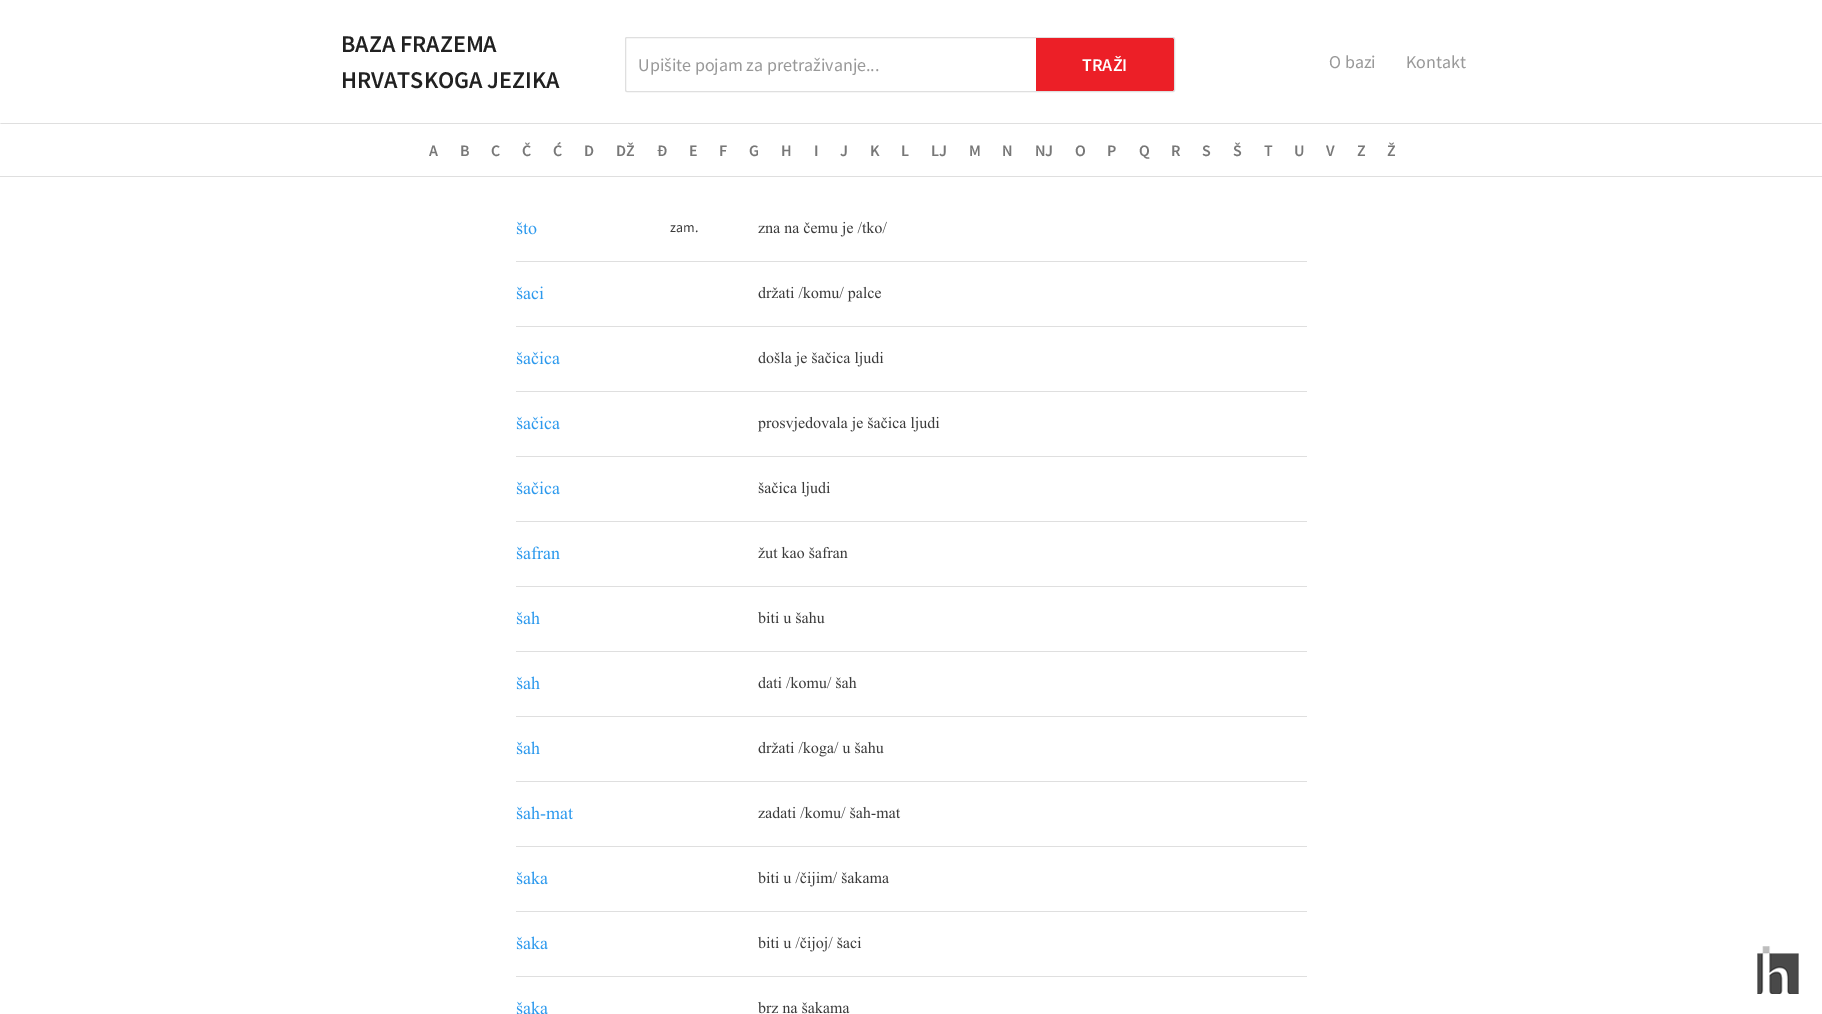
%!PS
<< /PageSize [1822 1014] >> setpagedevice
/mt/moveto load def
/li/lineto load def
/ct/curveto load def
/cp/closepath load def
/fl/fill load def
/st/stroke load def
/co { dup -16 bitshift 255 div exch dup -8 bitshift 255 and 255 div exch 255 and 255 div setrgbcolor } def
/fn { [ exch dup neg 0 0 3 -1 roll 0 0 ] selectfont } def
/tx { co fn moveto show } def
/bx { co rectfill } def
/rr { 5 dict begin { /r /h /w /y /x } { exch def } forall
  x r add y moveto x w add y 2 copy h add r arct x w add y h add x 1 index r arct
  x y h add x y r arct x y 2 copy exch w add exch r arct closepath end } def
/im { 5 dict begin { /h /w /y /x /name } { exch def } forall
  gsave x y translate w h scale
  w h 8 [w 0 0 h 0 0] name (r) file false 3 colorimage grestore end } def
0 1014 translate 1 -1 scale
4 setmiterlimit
0 0 1822 1014 16#FFFFFF bx
16#DFDFDF co
1822 124 mt 0 124 li 1 123 li 1821 123 li cp fl
625.5 37.5 549 54 1.5 rr st
16#EC1F27 co
1036 38 mt 1172 38 li 1173 38 1174 39 1174 40 ct 1174 89 li 1174 90 1173 91 1172 91 ct 1036 91 li cp fl
0 176 1822 1 16#DFDFDF bx
516 261 791 1 16#DFDFDF bx
(media/1.raw) 758 221 129 16 im
(media/2.raw) 516 221 21 14 im
516 326 791 1 16#DFDFDF bx
(media/3.raw) 758 286 123 16 im
(media/4.raw) 516 286 28 14 im
516 391 791 1 16#DFDFDF bx
(media/5.raw) 758 351 126 16 im
(media/6.raw) 516 351 44 14 im
516 456 791 1 16#DFDFDF bx
(media/7.raw) 758 416 182 16 im
(media/6.raw) 516 416 44 14 im
516 521 791 1 16#DFDFDF bx
(media/8.raw) 758 481 72 16 im
(media/6.raw) 516 481 44 14 im
516 586 791 1 16#DFDFDF bx
(media/9.raw) 758 546 90 13 im
(media/10.raw) 516 546 44 14 im
516 651 791 1 16#DFDFDF bx
(media/11.raw) 758 611 67 13 im
(media/12.raw) 516 611 24 14 im
516 716 791 1 16#DFDFDF bx
(media/13.raw) 758 676 99 13 im
(media/12.raw) 516 676 24 14 im
516 781 791 1 16#DFDFDF bx
(media/14.raw) 758 741 126 16 im
(media/12.raw) 516 741 24 14 im
516 846 791 1 16#DFDFDF bx
(media/15.raw) 758 806 143 13 im
(media/16.raw) 516 806 57 14 im
516 911 791 1 16#DFDFDF bx
(media/17.raw) 758 871 132 16 im
(media/18.raw) 516 871 32 14 im
516 976 791 1 16#DFDFDF bx
(media/19.raw) 758 936 104 16 im
(media/18.raw) 516 936 32 14 im
(media/20.raw) 516 1001 32 13 im
(media/21.raw) 758 1001 92 13 im
(media/22.raw) 1757 946 42 48 im
(BAZA FRAZEMA) 341 52 /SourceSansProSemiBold-SemiBold 24 16#212121 tx
(HRVATSKOGA JEZIKA) 341 88 /SourceSansProSemiBold-SemiBold 24 16#212121 tx
(Upišite pojam za pretraživanje...) 638 71 /SourceSansPro-Regular 18 16#999999 tx
(TRAŽI) 1082 71 /SourceSansProSemiBold-SemiBold 18 16#FFFFFF tx
(O bazi) 1329 68 /SourceSansPro-Regular 18 16#999999 tx
(Kontakt) 1406 68 /SourceSansPro-Regular 18 16#999999 tx
(A) 429 156 /SourceSansProSemiBold-SemiBold 16 16#777777 tx
(B) 460 156 /SourceSansProSemiBold-SemiBold 16 16#777777 tx
(C) 491 156 /SourceSansProSemiBold-SemiBold 16 16#777777 tx
(Č) 522 156 /SourceSansProSemiBold-SemiBold 16 16#777777 tx
(Ć) 553 156 /SourceSansProSemiBold-SemiBold 16 16#777777 tx
(D) 584 156 /SourceSansProSemiBold-SemiBold 16 16#777777 tx
(DŽ) 616 156 /SourceSansProSemiBold-SemiBold 16 16#777777 tx
(Đ) 657 156 /SourceSansProSemiBold-SemiBold 16 16#777777 tx
(E) 689 156 /SourceSansProSemiBold-SemiBold 16 16#777777 tx
(F) 719 156 /SourceSansProSemiBold-SemiBold 16 16#777777 tx
(G) 749 156 /SourceSansProSemiBold-SemiBold 16 16#777777 tx
(H) 781 156 /SourceSansProSemiBold-SemiBold 16 16#777777 tx
(I) 814 156 /SourceSansProSemiBold-SemiBold 16 16#777777 tx
(J) 840 156 /SourceSansProSemiBold-SemiBold 16 16#777777 tx
(K) 870 156 /SourceSansProSemiBold-SemiBold 16 16#777777 tx
(L) 901 156 /SourceSansProSemiBold-SemiBold 16 16#777777 tx
(LJ) 931 156 /SourceSansProSemiBold-SemiBold 16 16#777777 tx
(M) 969 156 /SourceSansProSemiBold-SemiBold 16 16#777777 tx
(N) 1002 156 /SourceSansProSemiBold-SemiBold 16 16#777777 tx
(NJ) 1035 156 /SourceSansProSemiBold-SemiBold 16 16#777777 tx
(O) 1075 156 /SourceSansProSemiBold-SemiBold 16 16#777777 tx
(P) 1107 156 /SourceSansProSemiBold-SemiBold 16 16#777777 tx
(Q) 1139 156 /SourceSansProSemiBold-SemiBold 16 16#777777 tx
(R) 1171 156 /SourceSansProSemiBold-SemiBold 16 16#777777 tx
(S) 1202 156 /SourceSansProSemiBold-SemiBold 16 16#777777 tx
(Š) 1233 156 /SourceSansProSemiBold-SemiBold 16 16#777777 tx
(T) 1264 156 /SourceSansProSemiBold-SemiBold 16 16#777777 tx
(U) 1294 156 /SourceSansProSemiBold-SemiBold 16 16#777777 tx
(V) 1326 156 /SourceSansProSemiBold-SemiBold 16 16#777777 tx
(Z) 1357 156 /SourceSansProSemiBold-SemiBold 16 16#777777 tx
(Ž) 1387 156 /SourceSansProSemiBold-SemiBold 16 16#777777 tx
(zam.) 670 232 /SourceSansPro-Regular 14 16#3A3A3A tx
showpage
